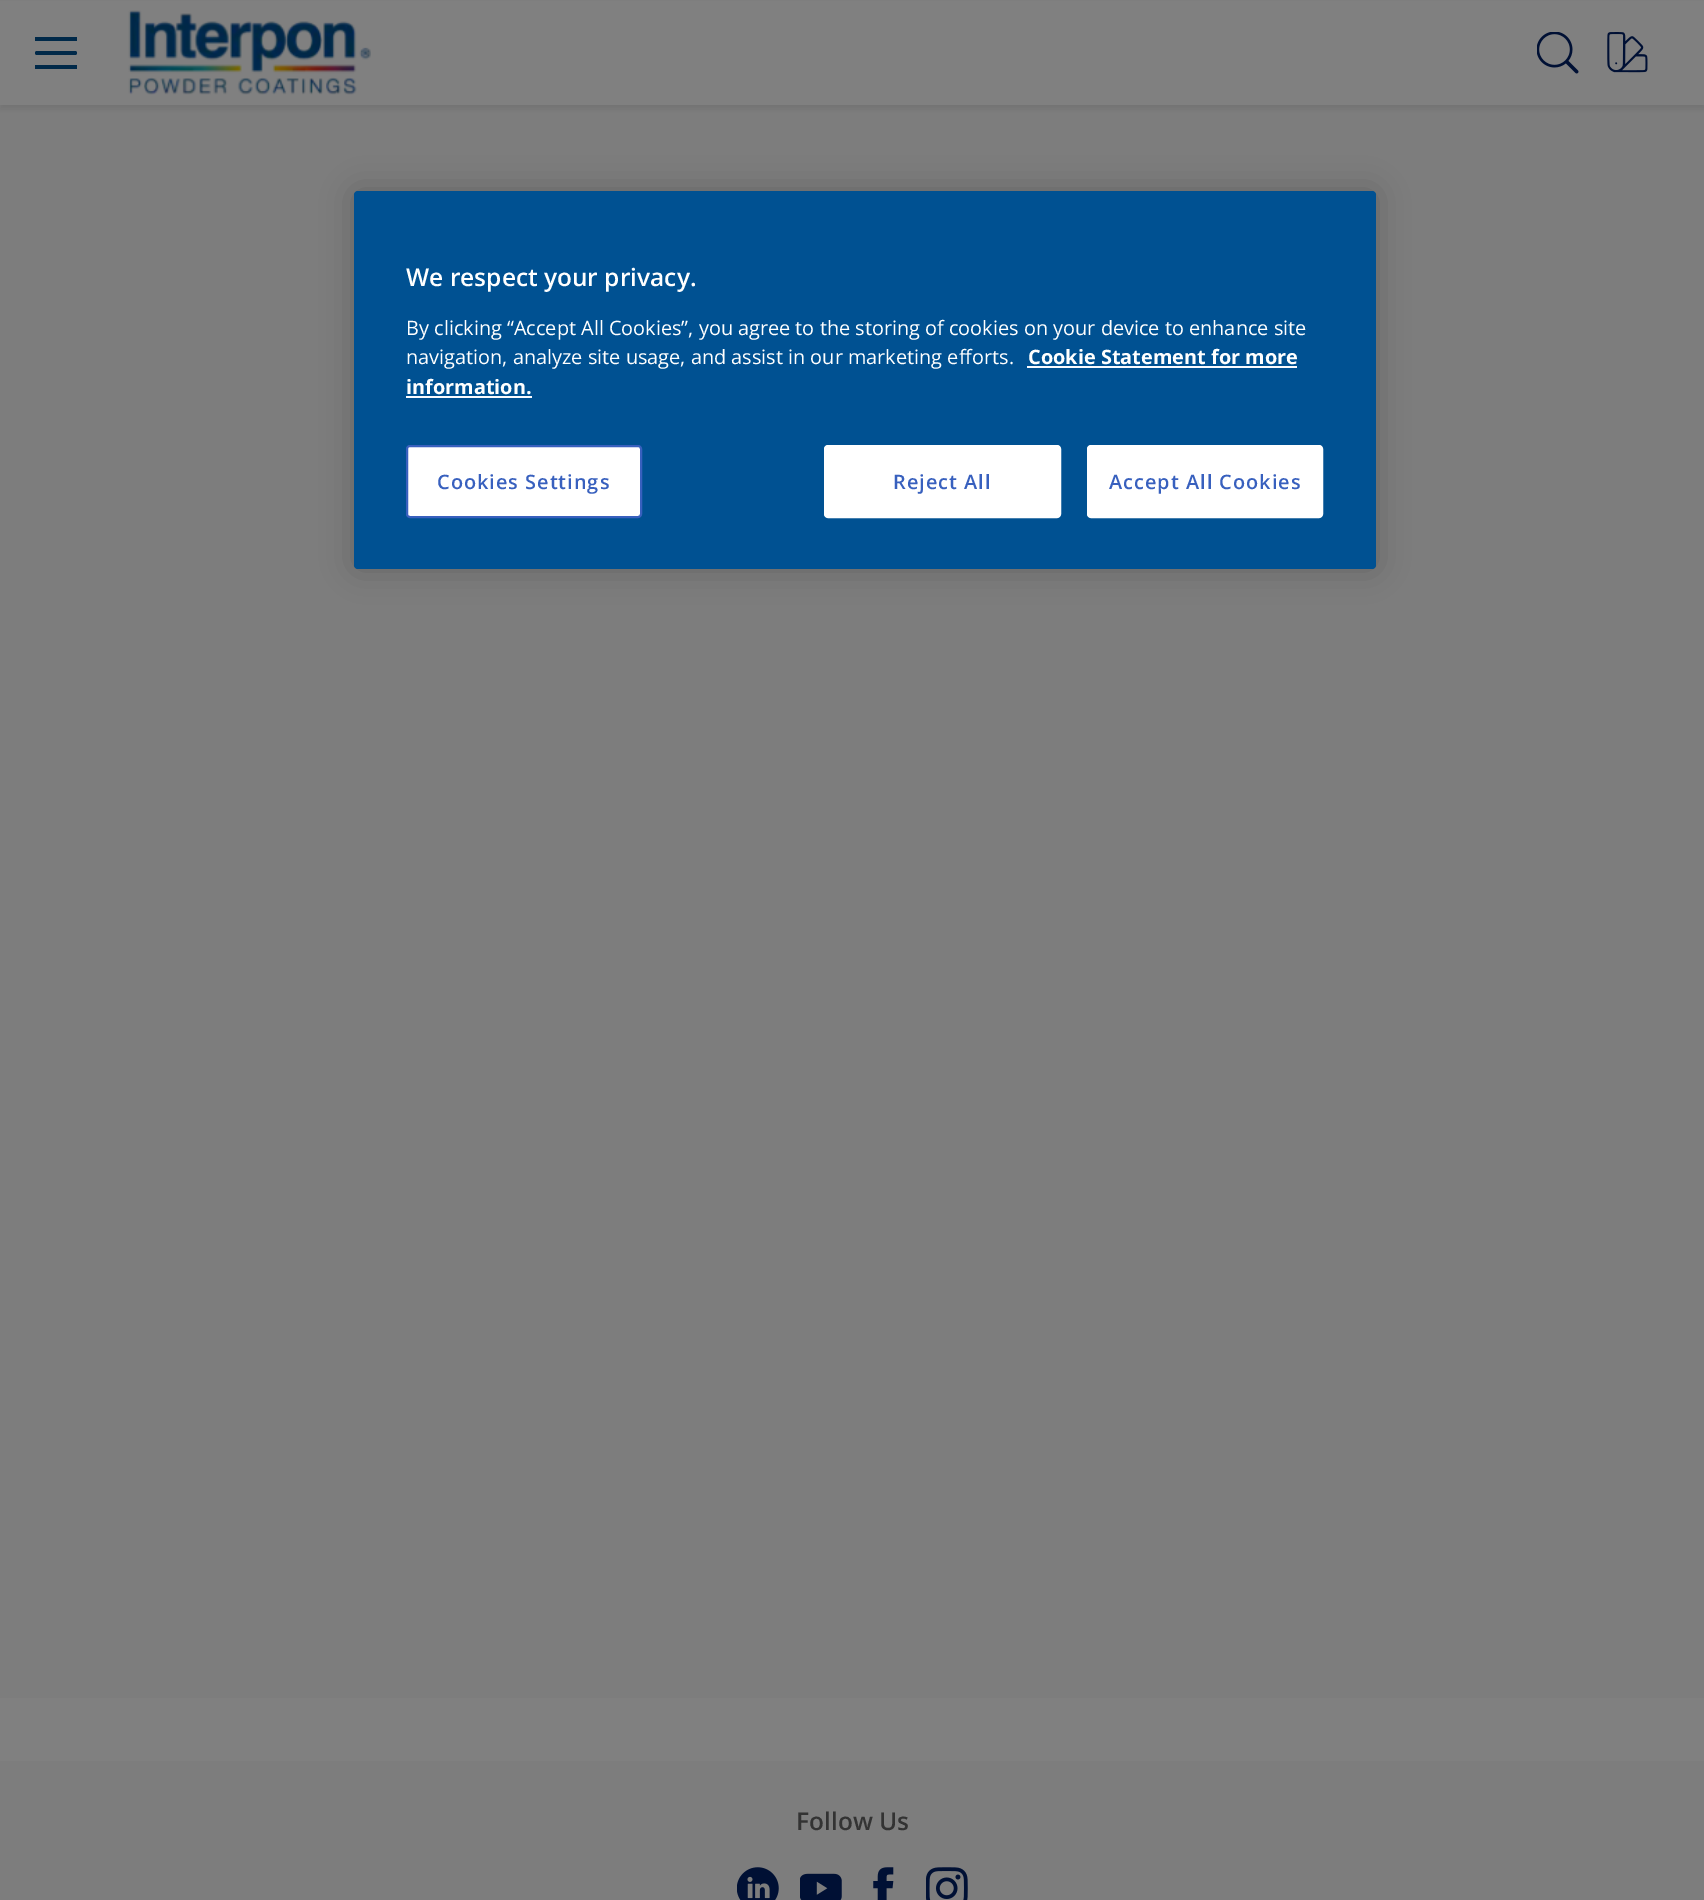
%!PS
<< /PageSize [1704 1900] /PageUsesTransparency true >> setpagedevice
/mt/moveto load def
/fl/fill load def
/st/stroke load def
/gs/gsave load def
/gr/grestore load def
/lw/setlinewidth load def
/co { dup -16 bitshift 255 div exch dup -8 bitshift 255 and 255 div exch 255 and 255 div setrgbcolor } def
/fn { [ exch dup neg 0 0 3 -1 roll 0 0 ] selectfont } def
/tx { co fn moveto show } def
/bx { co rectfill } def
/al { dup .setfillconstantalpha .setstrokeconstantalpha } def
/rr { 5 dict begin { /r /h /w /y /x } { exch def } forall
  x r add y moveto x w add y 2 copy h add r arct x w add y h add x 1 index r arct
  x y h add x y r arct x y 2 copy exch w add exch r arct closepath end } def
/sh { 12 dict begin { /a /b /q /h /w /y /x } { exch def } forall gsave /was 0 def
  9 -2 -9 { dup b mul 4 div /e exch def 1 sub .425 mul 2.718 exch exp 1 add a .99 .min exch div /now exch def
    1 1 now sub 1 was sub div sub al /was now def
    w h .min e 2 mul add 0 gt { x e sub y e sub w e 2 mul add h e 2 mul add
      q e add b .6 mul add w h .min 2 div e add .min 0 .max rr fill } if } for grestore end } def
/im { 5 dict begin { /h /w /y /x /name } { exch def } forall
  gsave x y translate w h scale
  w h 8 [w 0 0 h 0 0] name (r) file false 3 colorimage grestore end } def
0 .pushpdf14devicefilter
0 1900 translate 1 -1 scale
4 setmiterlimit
0 0 1704 1900 16#808080 bx
0 105 1704 1593 16#7D7D7D bx
16#000000 co
354 191 1022 378 4 16 .2 sh
16#005192 co
354 191 1022 378 4 rr fl
1027 366 270 2 16#FAFBFF bx
406 396 126 2 16#FAFBFF bx
16#FFFFFF co
407 446 234 71 3 rr gs fl gr
16#3860BE co
2 lw
st
16#FFFFFF co
825 446 235 71 3 rr gs fl gr
st
1088 446 234 71 3 rr gs fl gr
st
16#000000 co
0 4 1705 105 0 3.5 .1 sh
0 1 1704 104 16#808080 bx
16#002949 co
35 51 42 4 2 rr fl
35 37 42 4 16#002949 bx
35 65 42 4 16#002949 bx
(media/1.raw) 128 10 243 85 im
(media/2.raw) 1537 32 42 42 im
(media/3.raw) 1607 32 41 41 im
0 1761 1704 139 16#7D7D7D bx
(media/4.raw) 737 1867 42 33 im
(media/5.raw) 800 1873 42 27 im
(media/6.raw) 873 1867 21 33 im
(media/7.raw) 926 1867 42 33 im
(We respect your privacy.) 406 286 /OpenSans-SemiBold 24.5 16#FFFFFF tx
(By clicking “Accept All Cookies”, you agree to the storing of cookies on your device to enhance site) 406 335 /OpenSans-Regular 19.9 16#FFFFFF tx
(navigation, analyze site usage, and assist in our marketing efforts.) 406 364 /OpenSans-Regular 19.9 16#FFFFFF tx
(Cookie Statement for more) 1028 364 /OpenSans-Bold 19.9 16#FFFFFF tx
(information.) 406 394 /OpenSans-Bold 19.9 16#FFFFFF tx
/OpenSans-SemiBold 19.9 fn
16#3860BE co
437 489 mt 1 0 (Cookies Settings) ashow
893 489 mt 1 0 (Reject All) ashow
1109 489 mt 1 0 (Accept All Cookies) ashow
(Follow Us) 796 1830 /OpenSans-SemiBold 24.5 16#333333 tx
.poppdf14devicefilter showpage
